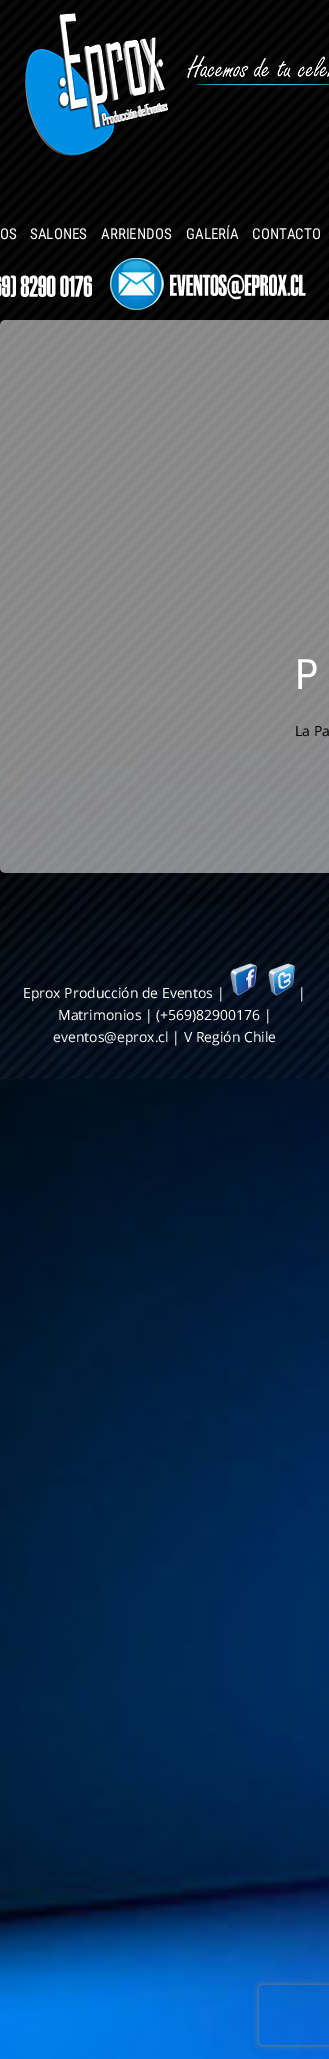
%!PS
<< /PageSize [329 2059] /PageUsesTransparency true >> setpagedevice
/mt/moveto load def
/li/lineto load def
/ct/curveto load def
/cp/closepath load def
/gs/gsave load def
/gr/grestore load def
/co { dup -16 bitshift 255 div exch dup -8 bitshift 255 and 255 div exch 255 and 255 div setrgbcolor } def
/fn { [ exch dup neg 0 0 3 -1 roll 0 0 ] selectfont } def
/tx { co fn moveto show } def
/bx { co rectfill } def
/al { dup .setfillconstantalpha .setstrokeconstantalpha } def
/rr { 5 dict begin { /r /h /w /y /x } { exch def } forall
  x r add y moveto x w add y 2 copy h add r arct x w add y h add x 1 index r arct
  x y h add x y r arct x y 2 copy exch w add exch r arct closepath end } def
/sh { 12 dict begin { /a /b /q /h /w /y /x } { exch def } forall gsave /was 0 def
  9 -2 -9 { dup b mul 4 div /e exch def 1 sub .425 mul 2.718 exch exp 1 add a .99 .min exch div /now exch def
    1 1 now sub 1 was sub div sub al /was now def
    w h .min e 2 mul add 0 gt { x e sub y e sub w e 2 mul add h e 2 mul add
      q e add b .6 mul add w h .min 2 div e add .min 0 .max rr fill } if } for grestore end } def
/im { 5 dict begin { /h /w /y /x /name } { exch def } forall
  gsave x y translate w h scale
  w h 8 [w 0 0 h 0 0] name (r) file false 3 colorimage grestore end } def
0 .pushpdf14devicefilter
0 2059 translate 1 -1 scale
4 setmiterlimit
0 0 329 2059 16#FFFFFF bx
(media/1.raw) 0 0 329 2059 im
(media/2.raw) 0 0 329 1079 im
(media/3.raw) 25 13 304 143 im
(media/4.raw) 0 258 306 52 im
(media/5.raw) 0 320 329 553 im
0.1 al
88 1006 241 73 16#000000 bx
1 al
(media/6.raw) 230 963 27 33 im
(media/7.raw) 268 963 27 33 im
gs
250 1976 mt 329 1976 li 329 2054 li 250 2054 li cp 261 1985 mt 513 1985 li 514 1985 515 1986 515 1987 ct 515 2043 li 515 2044 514 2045 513 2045 ct 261 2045 li 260 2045 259 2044 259 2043 ct 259 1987 li 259 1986 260 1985 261 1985 ct cp eoclip newpath
16#808080 co
259 1985 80 60 2 2.5 1 sh
gr
(OS) 0 239 /RobotoCondensed-Regular 15 16#FFFFFF tx
(SALONES) 30 239 /RobotoCondensed-Regular 15 16#FFFFFF tx
(ARRIENDOS) 101 239 /RobotoCondensed-Regular 15 16#FFFFFF tx
(GALERÍA) 186 239 /RobotoCondensed-Regular 15 16#FFFFFF tx
(CONTACTO) 252 239 /RobotoCondensed-Regular 15 16#FFFFFF tx
(P) 295 689 /RobotoCondensed-Regular 42 16#FFFFFF tx
(La Pa) 295 736 /OpenSans-Regular 14 16#000000 tx
(Eprox Producción de Eventos |) 23 998 /OpenSans-Regular 14 16#FFFFFF tx
(|) 298 998 /OpenSans-Regular 14 16#FFFFFF tx
(Matrimonios | \(+569\)82900176 |) 58 1020 /OpenSans-Regular 14 16#FFFFFF tx
(eventos@eprox.cl | V Región Chile) 53 1042 /OpenSans-Regular 14 16#FFFFFF tx
.poppdf14devicefilter showpage
